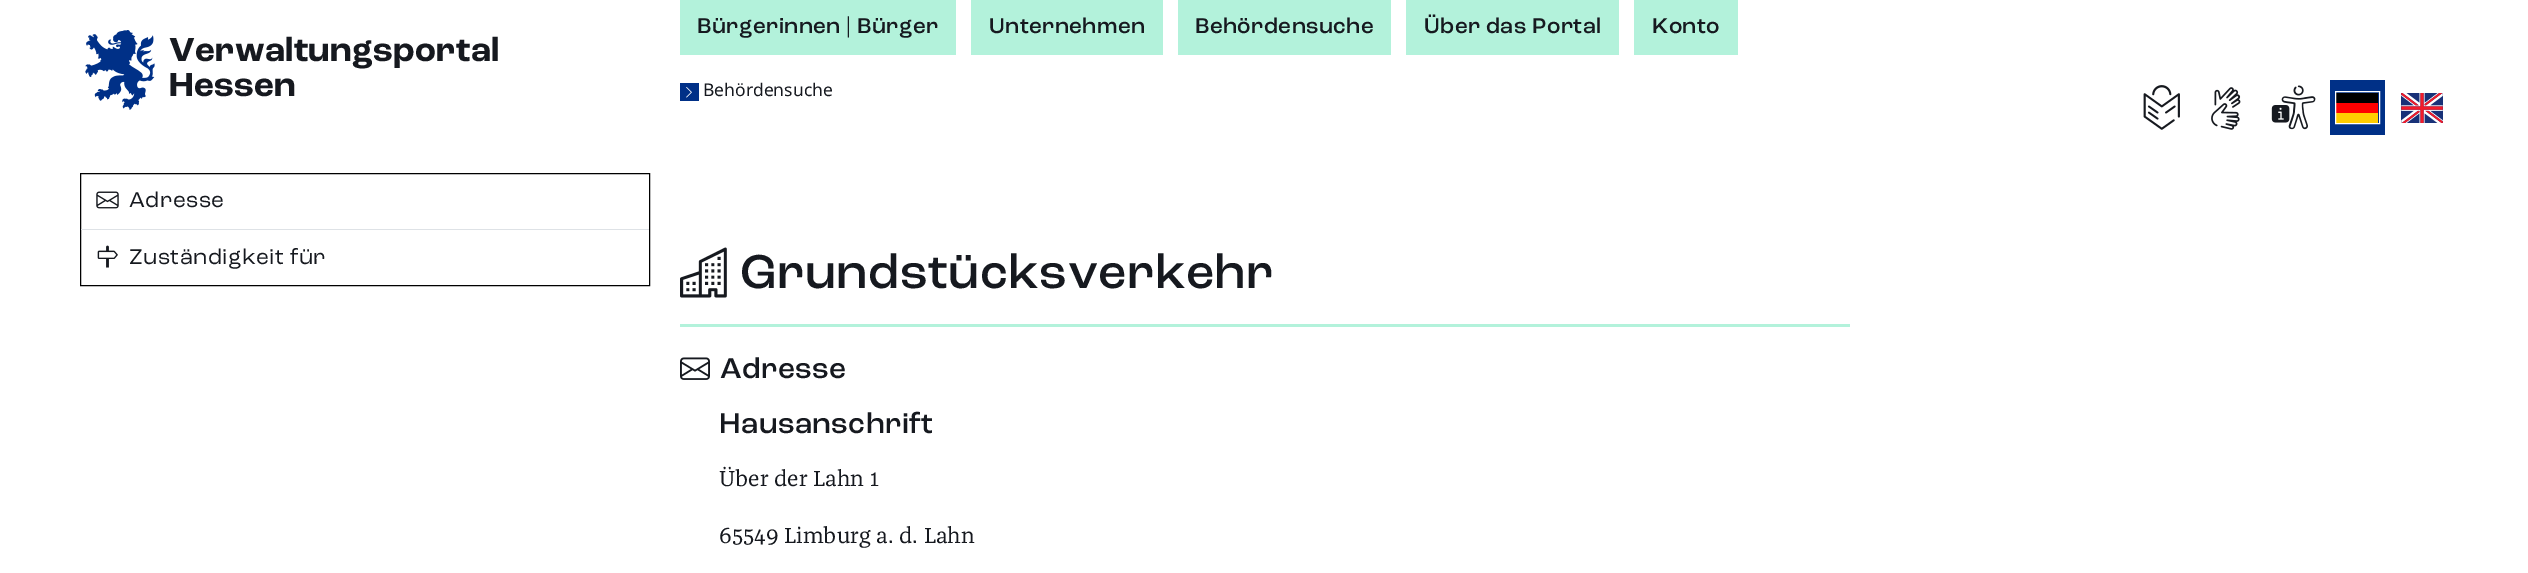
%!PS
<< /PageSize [2528 573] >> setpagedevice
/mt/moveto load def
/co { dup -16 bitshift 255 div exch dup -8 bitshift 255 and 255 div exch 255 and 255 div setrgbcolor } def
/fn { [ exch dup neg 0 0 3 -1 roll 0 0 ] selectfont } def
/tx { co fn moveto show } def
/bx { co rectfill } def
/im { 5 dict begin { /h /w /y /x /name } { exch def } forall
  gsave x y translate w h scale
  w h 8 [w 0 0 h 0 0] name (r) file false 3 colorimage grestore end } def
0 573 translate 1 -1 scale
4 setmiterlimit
0 0 2528 573 16#FFFFFF bx
(media/1.raw) 85 30 70 80 im
680 0 276 55 16#B3F2DB bx
971 0 192 55 16#B3F2DB bx
1178 0 213 55 16#B3F2DB bx
1406 0 213 55 16#B3F2DB bx
1634 0 104 55 16#B3F2DB bx
680 83 19 18 16#003087 bx
(media/2.raw) 686 87 6 11 im
(media/3.raw) 2143 85 37 45 im
(media/4.raw) 2211 87 30 43 im
(media/5.raw) 2271 85 45 45 im
2330 80 55 55 16#003087 bx
2336 93 42 10 16#000000 bx
2336 103 42 10 16#FF0000 bx
2336 113 42 10 16#FFCD00 bx
16#FFFFFF co
2335.5 91.5 44 32 rectstroke
(media/6.raw) 2401 93 42 30 im
16#000000 co
80.5 173.5 569 112 rectstroke
(media/7.raw) 96 191 23 18 im
81 229 568 1 16#DEE2E6 bx
(media/8.raw) 97 245 21 23 im
(media/9.raw) 680 247 47 51 im
680 324 1170 3 16#B3F2DB bx
(media/10.raw) 680 357 30 23 im
/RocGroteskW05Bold-Bold 35 fn
16#16191F co
169 61 mt .4 0 (Verwaltungsportal) ashow
169 96 mt .4 0 (Hessen) ashow
/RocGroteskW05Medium-Medium 22.5 fn
697 33 mt .4 0 (Bürgerinnen | Bürger) ashow
989 33 mt .4 0 (Unternehmen) ashow
1195 33 mt .4 0 (Behördensuche) ashow
1424 33 mt .4 0 (Über das Portal) ashow
1652 33 mt .4 0 (Konto) ashow
(Behördensuche) 703 96 /NotoSans-Regular 17.5 16#16191F tx
/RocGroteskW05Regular-Regular 22.5 fn
129 207 mt .4 0 (Adresse) ashow
129 264 mt .4 0 (Zuständigkeit für) ashow
/RocGroteskW05Medium-Medium 50 fn
740 288 mt .4 0 (Grundstücksverkehr) ashow
/RocGroteskW05Medium-Medium 30 fn
720 378 mt .4 0 (Adresse) ashow
719 433 mt .4 0 (Hausanschrift) ashow
(Über der Lahn 1) 719 486 /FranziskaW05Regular-Regular 22.5 16#16191F tx
(65549 Limburg a. d. Lahn) 719 543 /FranziskaW05Regular-Regular 22.5 16#16191F tx
showpage
